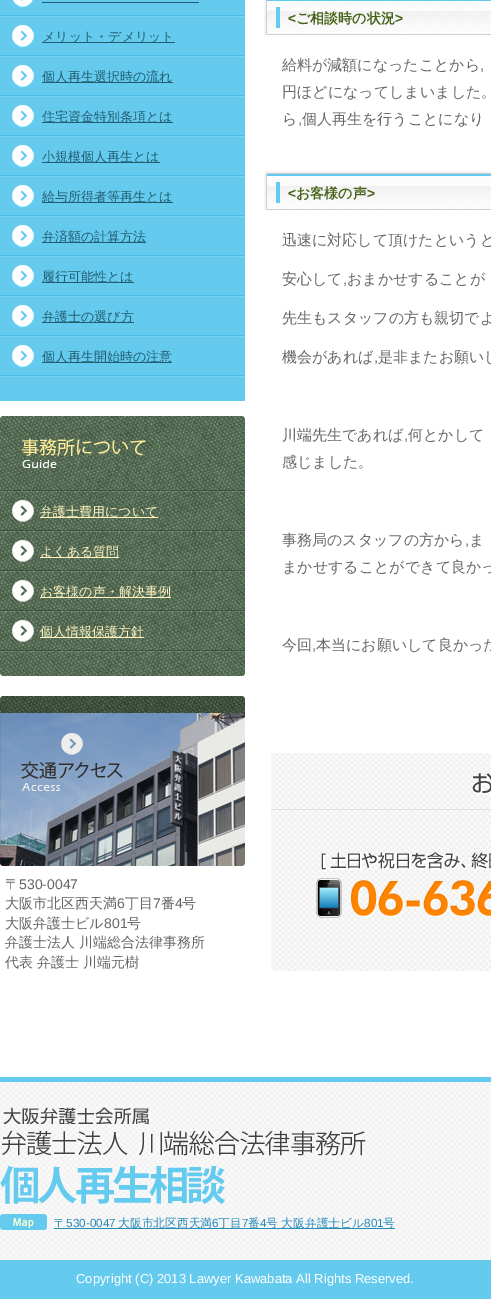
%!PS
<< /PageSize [491 1299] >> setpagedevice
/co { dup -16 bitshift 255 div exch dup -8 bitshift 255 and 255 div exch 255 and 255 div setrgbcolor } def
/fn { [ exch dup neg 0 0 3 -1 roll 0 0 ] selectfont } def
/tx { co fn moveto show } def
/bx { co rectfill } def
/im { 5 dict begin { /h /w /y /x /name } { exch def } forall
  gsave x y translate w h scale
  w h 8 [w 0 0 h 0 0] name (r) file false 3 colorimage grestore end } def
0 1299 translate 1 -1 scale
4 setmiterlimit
0 0 491 1299 16#FFFFFF bx
0 17 245 384 16#64CBEF bx
(media/1.raw) 0 0 245 17 im
42 2 157 1 16#235D71 bx
(media/2.raw) 0 25 245 32 im
42 42 133 1 16#235D71 bx
(media/2.raw) 0 65 245 32 im
42 82 131 1 16#235D71 bx
(media/2.raw) 0 105 245 32 im
42 122 131 1 16#235D71 bx
(media/2.raw) 0 145 245 32 im
42 162 118 1 16#235D71 bx
(media/2.raw) 0 185 245 32 im
42 202 131 1 16#235D71 bx
(media/2.raw) 0 225 245 32 im
42 242 104 1 16#235D71 bx
(media/2.raw) 0 265 245 32 im
42 282 92 1 16#235D71 bx
(media/2.raw) 0 305 245 32 im
42 322 92 1 16#235D71 bx
(media/2.raw) 0 345 245 32 im
42 362 130 1 16#235D71 bx
(media/3.raw) 0 652 245 24 im
(media/4.raw) 0 416 245 76 im
(media/5.raw) 0 492 245 40 im
40 517 118 1 16#FEF3C1 bx
(media/5.raw) 0 532 245 40 im
40 557 79 1 16#FEF3C1 bx
(media/5.raw) 0 572 245 40 im
40 597 131 1 16#FEF3C1 bx
(media/5.raw) 0 612 245 40 im
40 637 104 1 16#FEF3C1 bx
(media/6.raw) 0 696 245 170 im
(media/7.raw) 264 0 227 35 im
(media/8.raw) 264 171 227 39 im
(media/9.raw) 271 753 220 218 im
(media/10.raw) 0 1077 491 189 im
(media/11.raw) 0 1107 366 97 im
(media/12.raw) 0 1214 47 16 im
54 1228 341 1 16#278BBA bx
0 1266 491 33 16#64CBEF bx
(メリット・デメリット) 42 41 /WenQuanYiZenHei-Medium 13 16#235D71 tx
(個人再生選択時の流れ) 42 81 /WenQuanYiZenHei-Medium 13 16#235D71 tx
(住宅資金特別条項とは) 42 121 /WenQuanYiZenHei-Medium 13 16#235D71 tx
(小規模個人再生とは) 42 161 /WenQuanYiZenHei-Medium 13 16#235D71 tx
(給与所得者等再生とは) 42 201 /WenQuanYiZenHei-Medium 13 16#235D71 tx
(弁済額の計算方法) 42 241 /WenQuanYiZenHei-Medium 13 16#235D71 tx
(履行可能性とは) 42 281 /WenQuanYiZenHei-Medium 13 16#235D71 tx
(弁護士の選び方) 42 321 /WenQuanYiZenHei-Medium 13 16#235D71 tx
(個人再生開始時の注意) 42 361 /WenQuanYiZenHei-Medium 13 16#235D71 tx
(弁護士費用について) 40 516 /WenQuanYiZenHei-Medium 13 16#FEF3C1 tx
(よくある質問) 40 556 /WenQuanYiZenHei-Medium 13 16#FEF3C1 tx
(お客様の声・解決事例) 40 596 /WenQuanYiZenHei-Medium 13 16#FEF3C1 tx
(個人情報保護方針) 40 636 /WenQuanYiZenHei-Medium 13 16#FEF3C1 tx
(〒) 5 889 /WenQuanYiZenHei-Medium 14 16#666666 tx
(530-0047) 19 889 /LiberationSans-Regular 14 16#666666 tx
(大阪市北区西天満) 5 908 /WenQuanYiZenHei-Medium 14 16#666666 tx
(6) 117 908 /LiberationSans-Regular 14 16#666666 tx
(丁目) 125 908 /WenQuanYiZenHei-Medium 14 16#666666 tx
(7) 153 908 /LiberationSans-Regular 14 16#666666 tx
(番) 161 908 /WenQuanYiZenHei-Medium 14 16#666666 tx
(4) 175 908 /LiberationSans-Regular 14 16#666666 tx
(号) 182 908 /WenQuanYiZenHei-Medium 14 16#666666 tx
(大阪弁護士ビル) 5 928 /WenQuanYiZenHei-Medium 14 16#666666 tx
(801) 104 928 /LiberationSans-Regular 14 16#666666 tx
(号) 127 928 /WenQuanYiZenHei-Medium 14 16#666666 tx
(弁護士法人 川端総合法律事務所) 5 947 /WenQuanYiZenHei-Medium 14 16#666666 tx
(代表 弁護士 川端元樹) 5 967 /WenQuanYiZenHei-Medium 14 16#666666 tx
(<) 288 23 /LiberationSans-Bold 14 16#476218 tx
(ご相談時の状況) 296 23 /WenQuanYiZenHei-Bold 14 16#476218 tx
(>) 395 23 /LiberationSans-Bold 14 16#476218 tx
(給料が減額になったことから) 282 70 /WenQuanYiZenHei-Medium 15 16#666666 tx
(,) 480 70 /LiberationSans-Regular 15 16#666666 tx
(円ほどになってしまいました。) 282 97 /WenQuanYiZenHei-Medium 15 16#666666 tx
(ら) 282 124 /WenQuanYiZenHei-Medium 15 16#666666 tx
(,) 298 124 /LiberationSans-Regular 15 16#666666 tx
(個人再生を行うことになり) 302 124 /WenQuanYiZenHei-Medium 15 16#666666 tx
(<) 288 198 /LiberationSans-Bold 14 16#476218 tx
(お客様の声) 296 198 /WenQuanYiZenHei-Bold 14 16#476218 tx
(>) 367 198 /LiberationSans-Bold 14 16#476218 tx
(迅速に対応して頂けたというと) 282 245 /WenQuanYiZenHei-Medium 15 16#666666 tx
(安心して) 282 284 /WenQuanYiZenHei-Medium 15 16#666666 tx
(,) 343 284 /LiberationSans-Regular 15 16#666666 tx
(おまかせすることが) 347 284 /WenQuanYiZenHei-Medium 15 16#666666 tx
(先生もスタッフの方も親切でよ) 282 323 /WenQuanYiZenHei-Medium 15 16#666666 tx
(機会があれば) 282 362 /WenQuanYiZenHei-Medium 15 16#666666 tx
(,) 374 362 /LiberationSans-Regular 15 16#666666 tx
(是非またお願いし) 378 362 /WenQuanYiZenHei-Medium 15 16#666666 tx
(川端先生であれば) 282 440 /WenQuanYiZenHei-Medium 15 16#666666 tx
(,) 404 440 /LiberationSans-Regular 15 16#666666 tx
(何とかして) 408 440 /WenQuanYiZenHei-Medium 15 16#666666 tx
(感じました。) 282 467 /WenQuanYiZenHei-Medium 15 16#666666 tx
(事務局のスタッフの方から) 282 545 /WenQuanYiZenHei-Medium 15 16#666666 tx
(,) 465 545 /LiberationSans-Regular 15 16#666666 tx
(ま) 469 545 /WenQuanYiZenHei-Medium 15 16#666666 tx
(まかせすることができて良かっ) 282 572 /WenQuanYiZenHei-Medium 15 16#666666 tx
(今回) 282 650 /WenQuanYiZenHei-Medium 15 16#666666 tx
(,) 312 650 /LiberationSans-Regular 15 16#666666 tx
(本当にお願いして良かった) 316 650 /WenQuanYiZenHei-Medium 15 16#666666 tx
(〒) 54 1227 /WenQuanYiZenHei-Medium 11.75 16#278BBA tx
(530-0047) 66 1227 /LiberationSans-Regular 11.75 16#278BBA tx
(大阪市北区西天満) 118 1227 /WenQuanYiZenHei-Medium 11.75 16#278BBA tx
(6) 212 1227 /LiberationSans-Regular 11.75 16#278BBA tx
(丁目) 218 1227 /WenQuanYiZenHei-Medium 11.75 16#278BBA tx
(7) 242 1227 /LiberationSans-Regular 11.75 16#278BBA tx
(番) 248 1227 /WenQuanYiZenHei-Medium 11.75 16#278BBA tx
(4) 260 1227 /LiberationSans-Regular 11.75 16#278BBA tx
(号 大阪弁護士ビル) 266 1227 /WenQuanYiZenHei-Medium 11.75 16#278BBA tx
(801) 364 1227 /LiberationSans-Regular 11.75 16#278BBA tx
(号) 383 1227 /WenQuanYiZenHei-Medium 11.75 16#278BBA tx
(Copyright \(C\) 2013 Lawyer Kawabata All Rights Reserved.) 76 1283 /LiberationSans-Regular 13 16#FFFFFF tx
showpage
